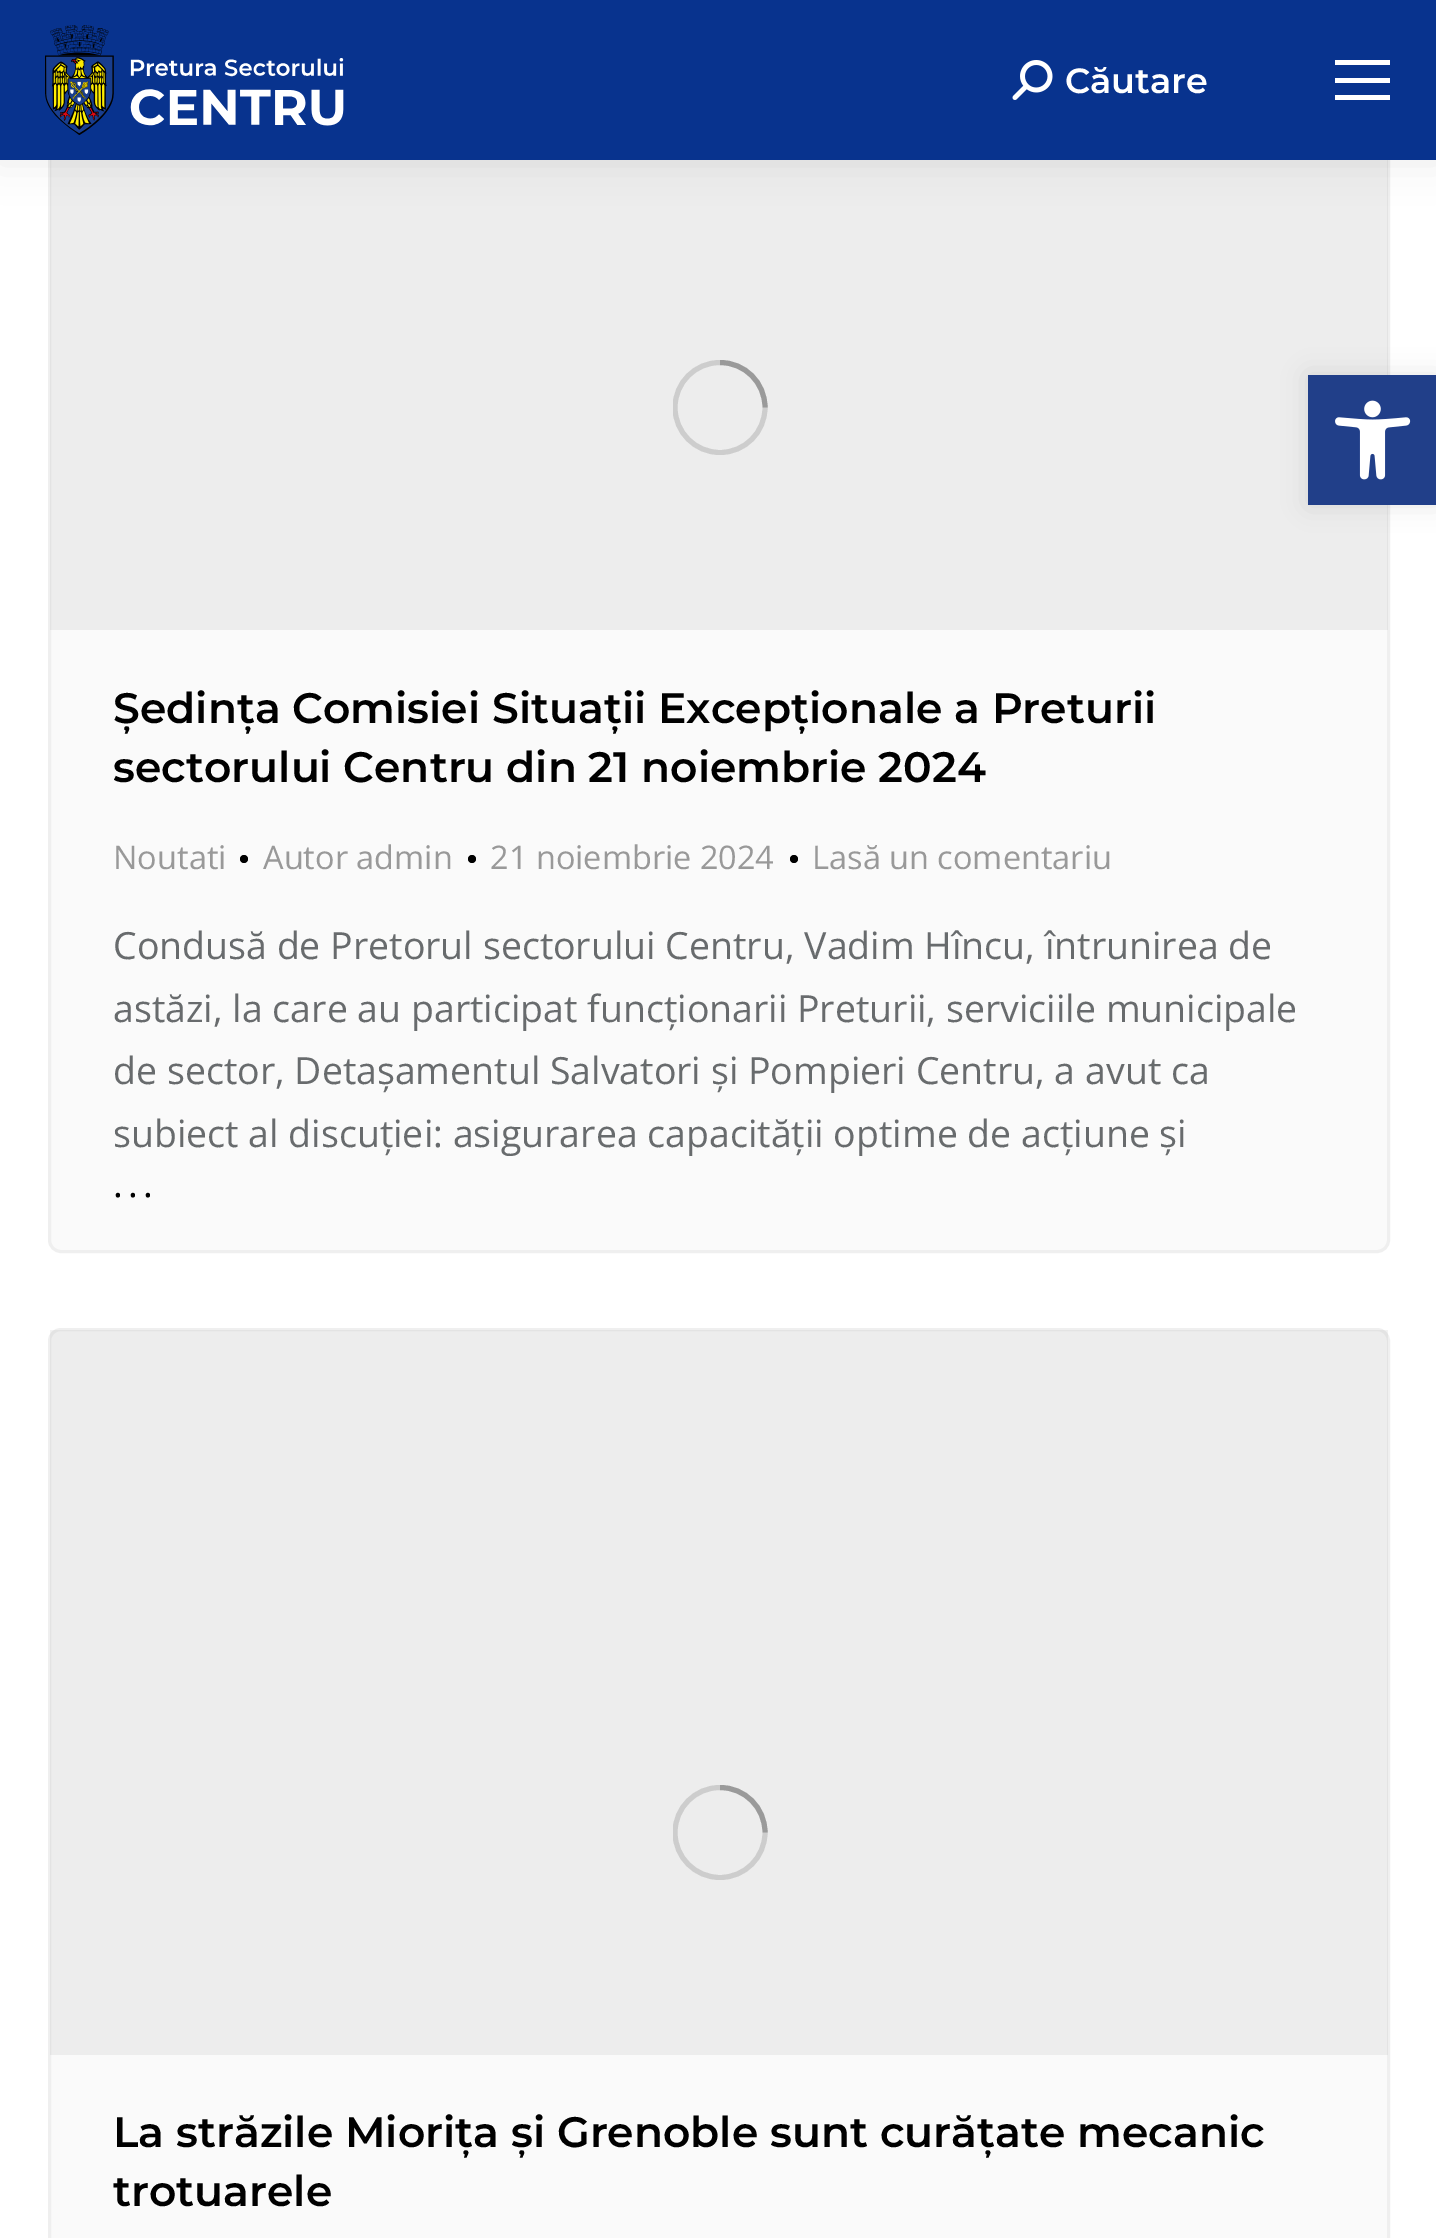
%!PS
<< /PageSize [1436 2238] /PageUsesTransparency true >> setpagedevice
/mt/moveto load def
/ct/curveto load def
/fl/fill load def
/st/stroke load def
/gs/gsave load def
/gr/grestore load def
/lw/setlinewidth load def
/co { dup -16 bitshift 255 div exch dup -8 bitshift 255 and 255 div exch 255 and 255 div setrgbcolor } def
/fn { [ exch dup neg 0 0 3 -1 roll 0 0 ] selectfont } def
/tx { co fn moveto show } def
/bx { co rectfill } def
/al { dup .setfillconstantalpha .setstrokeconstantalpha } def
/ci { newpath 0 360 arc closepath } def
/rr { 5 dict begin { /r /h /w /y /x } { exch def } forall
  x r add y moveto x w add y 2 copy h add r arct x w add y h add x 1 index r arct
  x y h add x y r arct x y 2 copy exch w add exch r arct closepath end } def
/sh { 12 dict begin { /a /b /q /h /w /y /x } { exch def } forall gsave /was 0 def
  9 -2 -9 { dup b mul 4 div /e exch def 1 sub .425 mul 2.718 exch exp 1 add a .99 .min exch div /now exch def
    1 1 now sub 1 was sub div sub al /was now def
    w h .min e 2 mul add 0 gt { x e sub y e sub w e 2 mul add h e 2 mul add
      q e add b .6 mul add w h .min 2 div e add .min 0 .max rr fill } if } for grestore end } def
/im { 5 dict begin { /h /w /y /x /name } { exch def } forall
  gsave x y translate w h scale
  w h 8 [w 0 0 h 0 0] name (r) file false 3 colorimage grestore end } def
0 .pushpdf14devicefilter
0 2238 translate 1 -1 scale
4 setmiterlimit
0 0 1436 2238 16#FFFFFF bx
16#FAFAFA co
49.5 -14.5 1339 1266 11.5 rr gs fl gr
16#EFEFEF co
3 lw
st
0.05 al
50 160 1338 470 16#000000 bx
1 al
-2 -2 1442 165 0 19 .07 sh
0 0 1436 160 16#08338E bx
(media/1.raw) 45 25 299 110 im
(media/2.raw) 1012 60 41 40 im
1335 60 55 5 16#FFFFFF bx
1335 78 55 5 16#FFFFFF bx
1335 95 55 5 16#FFFFFF bx
gs
673 360 95 95 rectclip
16#CDCDCD co
5 lw
720 407.5 45 ci st
gr
0.25 al
16#000000 co
5 lw
765 407.5 mt 765 382.5 745 362.5 720 362.5 ct st
1 al
244 859 4 ci fl
472 859 4 ci fl
794 859 4 ci fl
16#FAFAFA co
49.5 1329.5 1339 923 11.5 rr gs fl gr
16#EFEFEF co
3 lw
st
0.05 al
50 1330 1338 725 16#000000 bx
gs
673 1785 95 95 rectclip
1 al
16#CDCDCD co
5 lw
720 1832.5 45 ci st
gr
0.25 al
5 lw
765 1832.5 mt 765 1807.5 745 1787.5 720 1787.5 ct st
1 al
1308 375 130 130 0 12.5 .1 sh
1308 375 128 130 16#213F89 bx
(media/3.raw) 1335 400 76 80 im
(Căutare) 1065 93 /Montserrat-SemiBold 35 16#FFFFFF tx
(Ședința Comisiei Situații Excepționale a Preturii) 113 723 /Montserrat-SemiBold 42.5 16#000000 tx
(sectorului Centru din 21 noiembrie 2024) 113 782 /Montserrat-SemiBold 42.5 16#000000 tx
(Noutati) 113 869 /OpenSans-Regular 32.5 16#999999 tx
(Autor admin) 263 869 /OpenSans-Regular 32.5 16#999999 tx
(21 noiembrie 2024) 490 869 /OpenSans-Regular 32.5 16#999999 tx
(Lasă un comentariu) 812 869 /OpenSans-Regular 32.5 16#999999 tx
(Condusă de Pretorul sectorului Centru, Vadim Hîncu, întrunirea de) 113 959 /OpenSans-Regular 37.5 16#686B6D tx
(astăzi, la care au participat funcționarii Preturii, serviciile municipale) 113 1022 /OpenSans-Regular 37.5 16#686B6D tx
(de sector, Detașamentul Salvatori și Pompieri Centru, a avut ca) 113 1084 /OpenSans-Regular 37.5 16#686B6D tx
(subiect al discuției: asigurarea capacității optime de acțiune și) 113 1147 /OpenSans-Regular 37.5 16#686B6D tx
16#000000 co
113 1197 mt 5 0 (...) ashow
(La străzile Miorița și Grenoble sunt curățate mecanic) 113 2147 /Montserrat-SemiBold 42.5 16#000000 tx
(trotuarele) 113 2206 /Montserrat-SemiBold 42.5 16#000000 tx
.poppdf14devicefilter showpage
